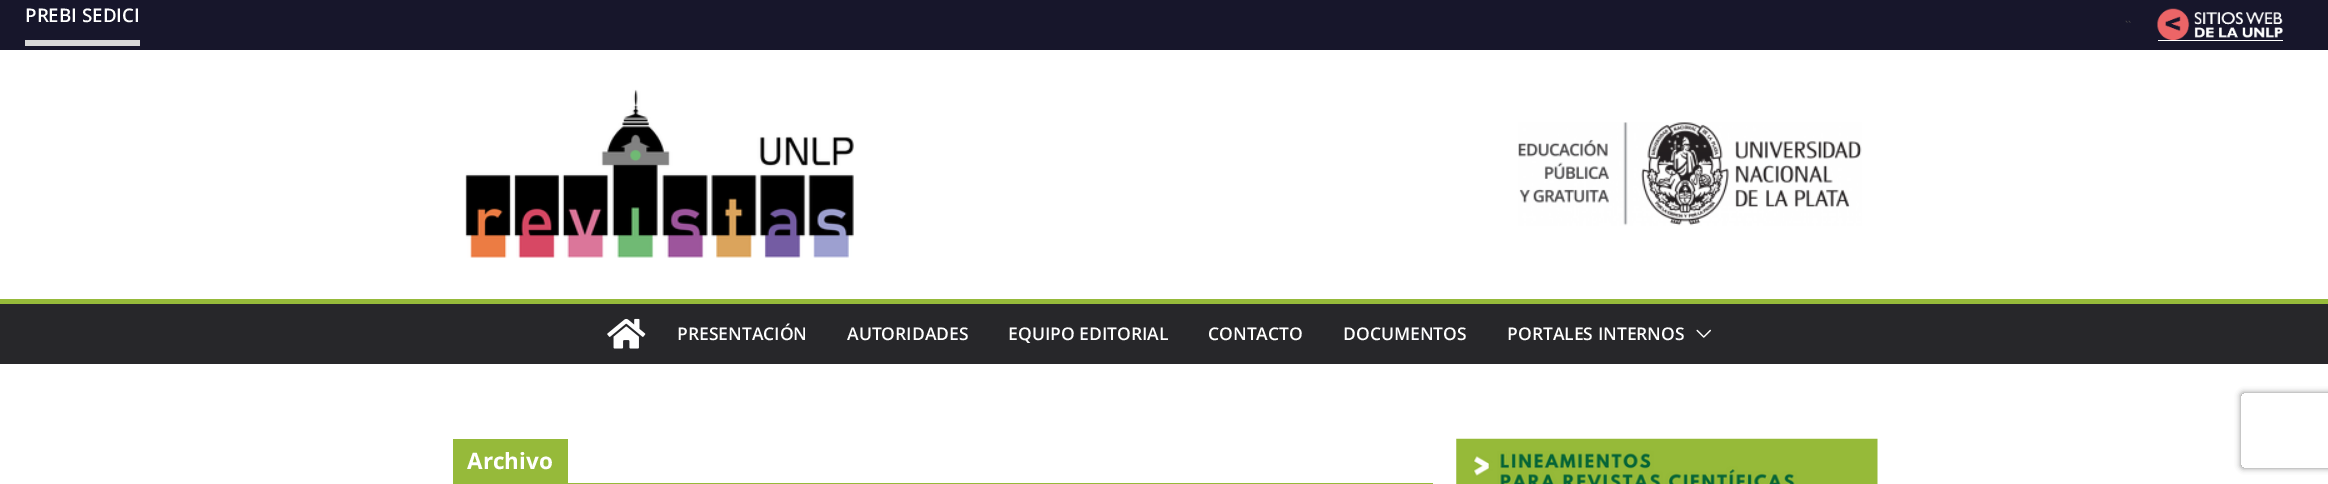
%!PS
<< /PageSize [2328 484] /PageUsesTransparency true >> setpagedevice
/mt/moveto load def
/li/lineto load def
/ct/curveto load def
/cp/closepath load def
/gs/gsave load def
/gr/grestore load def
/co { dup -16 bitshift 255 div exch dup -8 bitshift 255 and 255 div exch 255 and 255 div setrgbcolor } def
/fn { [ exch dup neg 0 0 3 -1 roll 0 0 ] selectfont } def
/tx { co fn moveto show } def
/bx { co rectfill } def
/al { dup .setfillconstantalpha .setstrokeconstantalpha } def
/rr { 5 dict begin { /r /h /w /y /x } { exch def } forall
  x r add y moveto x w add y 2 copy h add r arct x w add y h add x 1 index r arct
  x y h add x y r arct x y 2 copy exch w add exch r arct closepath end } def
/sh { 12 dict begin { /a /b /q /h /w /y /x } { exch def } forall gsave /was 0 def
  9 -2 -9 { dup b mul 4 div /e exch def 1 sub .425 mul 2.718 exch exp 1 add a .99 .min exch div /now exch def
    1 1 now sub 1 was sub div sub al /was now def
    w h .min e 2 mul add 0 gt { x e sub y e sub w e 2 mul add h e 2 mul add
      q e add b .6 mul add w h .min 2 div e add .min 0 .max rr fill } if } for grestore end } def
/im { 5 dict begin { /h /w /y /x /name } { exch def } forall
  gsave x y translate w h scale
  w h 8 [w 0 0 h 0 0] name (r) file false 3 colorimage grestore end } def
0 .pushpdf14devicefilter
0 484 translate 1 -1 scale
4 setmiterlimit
0 0 2328 484 16#FFFFFF bx
0 0 2328 50 16#17162B bx
25 40 115 6 16#D8D8D8 bx
2158 40 125 1 16#FFFFFF bx
(media/1.raw) 2157 8 126 32 im
(media/2.raw) 465 89 389 169 im
(media/3.raw) 1518 122 344 104 im
0 304 2328 60 16#27272A bx
0 299 2328 5 16#96BA3A bx
(media/4.raw) 607 318 39 31 im
(media/5.raw) 1696 329 15 9 im
453 483 980 1 16#96BA3A bx
453 439 115 44 16#96BA3A bx
(media/6.raw) 1456 438 422 46 im
gs
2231 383 mt 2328 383 li 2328 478 li 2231 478 li cp 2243.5 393 mt 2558.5 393 li 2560 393 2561 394 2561 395.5 ct 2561 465.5 li 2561 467 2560 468 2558.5 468 ct 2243.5 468 li 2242 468 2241 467 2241 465.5 ct 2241 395.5 li 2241 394 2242 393 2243.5 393 ct cp eoclip newpath
16#808080 co
2241 393 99 75 2.5 3 1 sh
gr
(PREBI SEDICI) 25 22 /OpenSans-SemiBold 18.75 16#FFFFFF tx
(``) 2125 30 /OpenSans-Regular 12 16#444444 tx
(PRESENTACIÓN) 677 340 /OpenSans-SemiBold 17.5 16#FFFFFF tx
(AUTORIDADES) 847 340 /OpenSans-SemiBold 17.5 16#FFFFFF tx
(EQUIPO EDITORIAL) 1008 340 /OpenSans-SemiBold 17.5 16#FFFFFF tx
(CONTACTO) 1208 340 /OpenSans-SemiBold 17.5 16#FFFFFF tx
(DOCUMENTOS) 1343 340 /OpenSans-SemiBold 17.5 16#FFFFFF tx
(PORTALES INTERNOS) 1507 340 /OpenSans-SemiBold 17.5 16#FFFFFF tx
(Archivo) 467 469 /OpenSans-Bold 22.5 16#FFFFFF tx
.poppdf14devicefilter showpage
